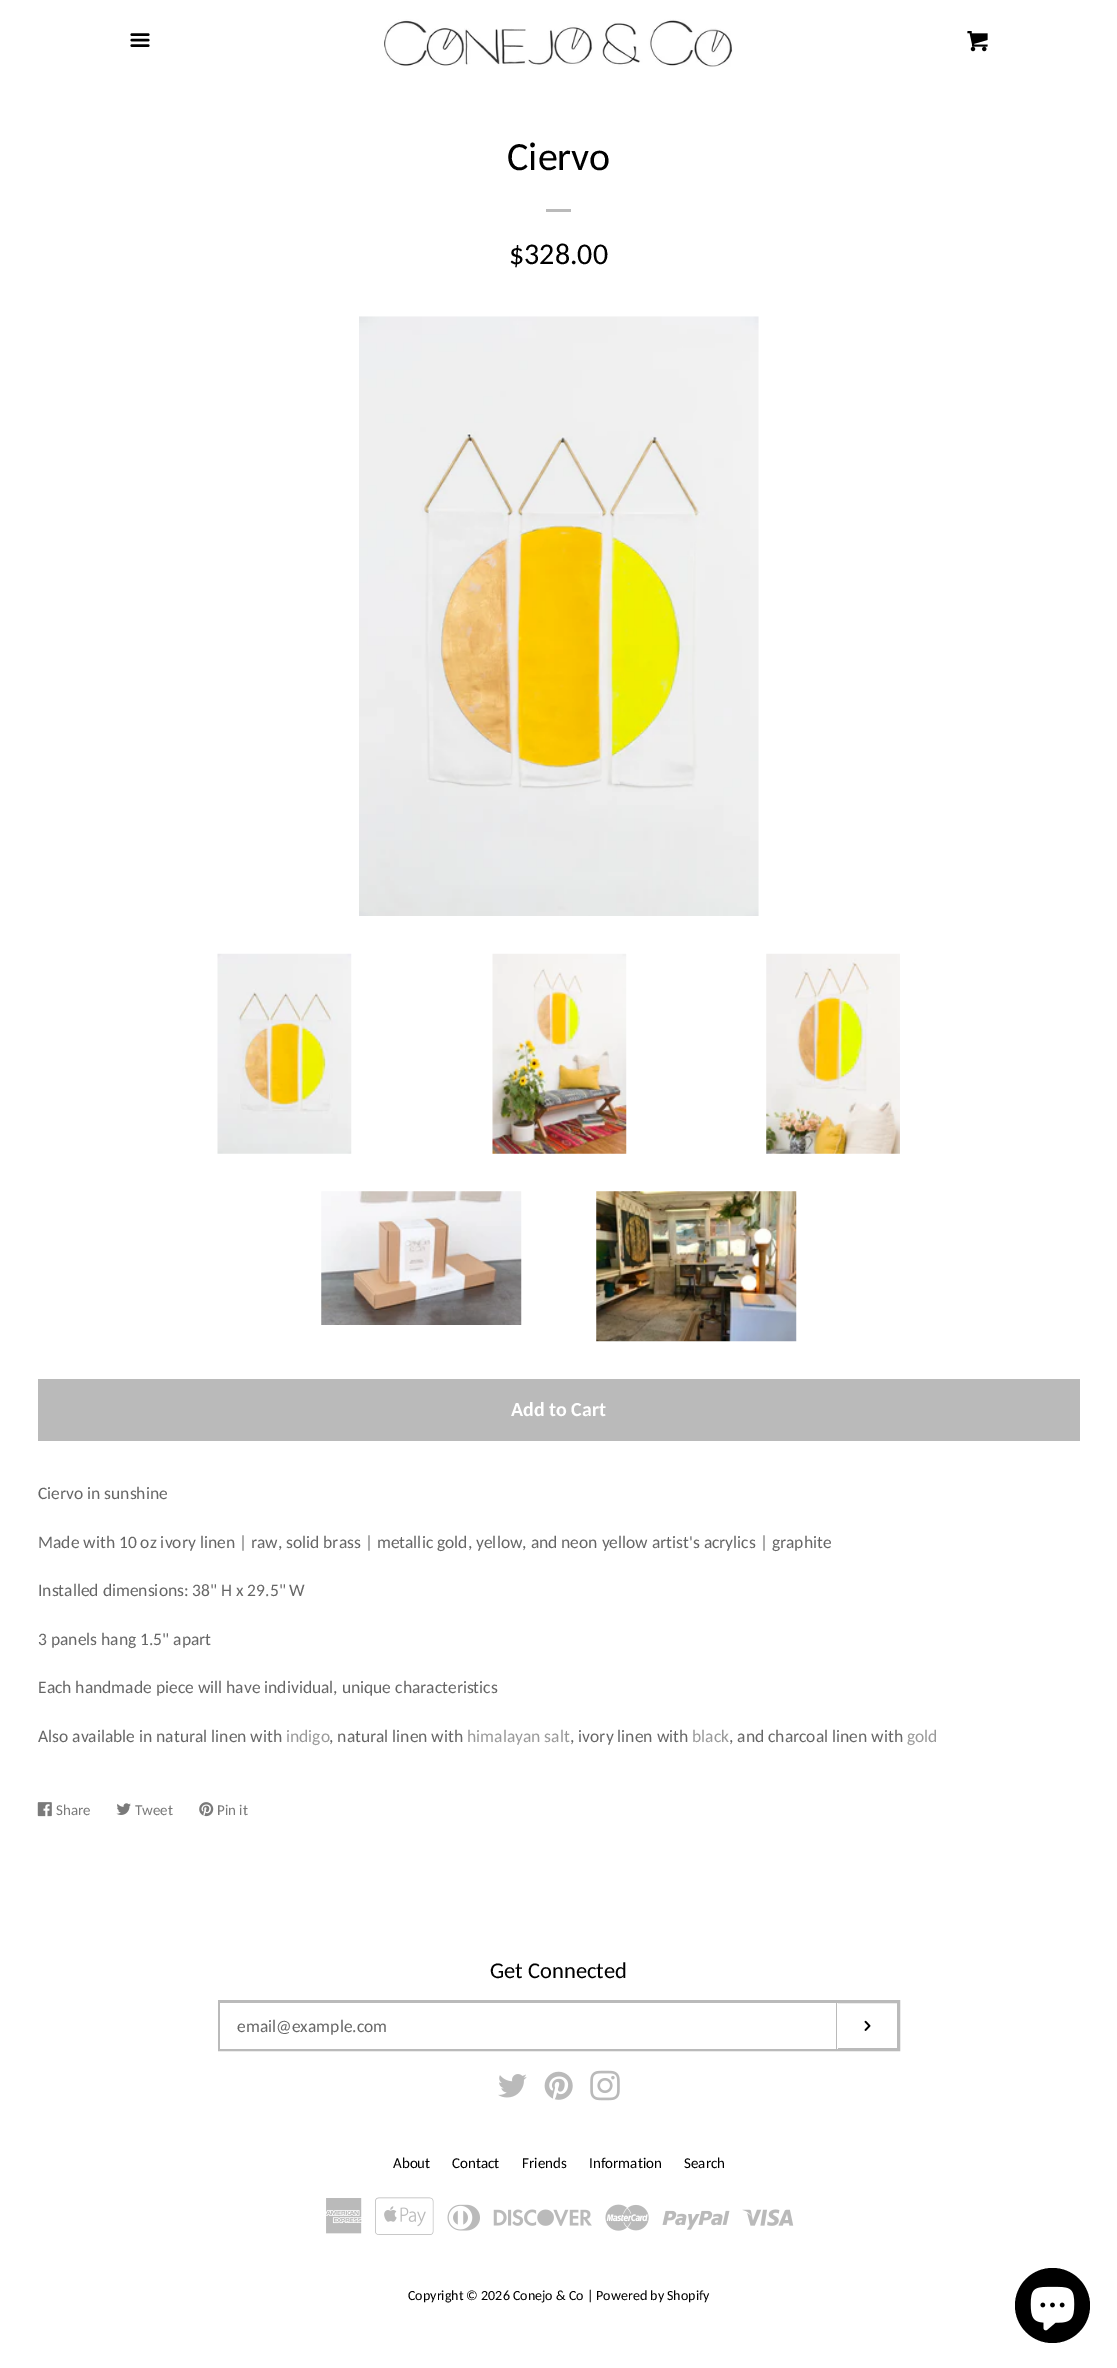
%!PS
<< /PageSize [1117 2368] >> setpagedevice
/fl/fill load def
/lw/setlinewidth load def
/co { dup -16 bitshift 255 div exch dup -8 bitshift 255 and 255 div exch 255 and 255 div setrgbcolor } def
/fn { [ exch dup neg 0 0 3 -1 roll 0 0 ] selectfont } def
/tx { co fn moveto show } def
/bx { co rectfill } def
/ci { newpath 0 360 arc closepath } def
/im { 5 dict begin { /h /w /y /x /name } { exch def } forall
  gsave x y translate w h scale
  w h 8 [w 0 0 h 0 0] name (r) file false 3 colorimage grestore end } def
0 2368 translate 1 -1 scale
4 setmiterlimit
0 0 1117 2368 16#FFFFFF bx
(media/1.raw) 130 33 20 14 im
(media/2.raw) 384 19 349 48 im
(media/3.raw) 967 31 21 21 im
546 209 25 3 16#BABABA bx
(media/4.raw) 359 316 400 600 im
(media/5.raw) 217 953 135 201 im
(media/6.raw) 492 953 135 201 im
(media/7.raw) 766 953 134 201 im
(media/8.raw) 321 1191 201 134 im
(media/9.raw) 596 1191 201 151 im
38 1379 1042 62 16#BABABA bx
(media/10.raw) 37 1802 15 15 im
(media/11.raw) 116 1803 15 12 im
(media/12.raw) 199 1802 15 15 im
3 lw
219.5 2001.5 679 48 rectstroke
220 2003 618 46 16#FFFFFF bx
836 2003 1 46 16#BABABA bx
(media/13.raw) 864 2020 7 11 im
(media/14.raw) 498 2074 29 24 im
(media/15.raw) 544 2071 29 29 im
(media/16.raw) 590 2070 30 31 im
(media/17.raw) 326 2198 36 36 im
(media/18.raw) 375 2197 59 38 im
(media/19.raw) 447 2204 33 27 im
(media/20.raw) 493 2209 99 17 im
(media/21.raw) 605 2204 44 27 im
(media/22.raw) 662 2210 68 20 im
(media/23.raw) 742 2209 52 17 im
16#000000 co
1052.5 2305.5 37.5 ci fl
(media/24.raw) 1030 2286 45 45 im
(Ciervo) 507 170 /Carlito-Regular 40 16#000000 tx
($328.00) 509 264 /Carlito-Regular 30 16#000000 tx
(Add to Cart) 511 1416 /Carlito-Bold 20 16#FFFFFF tx
(Ciervo in sunshine) 38 1499 /Carlito-Regular 17.5 16#666666 tx
(Made with 10 oz ivory linen | raw, solid brass | metallic gold, yellow, and neon yellow artist's acrylics | graphite) 38 1548 /Carlito-Regular 17.5 16#666666 tx
(Installed dimensions: 38" H x 29.5" W) 38 1596 /Carlito-Regular 17.5 16#666666 tx
(3 panels hang 1.5" apart) 38 1645 /Carlito-Regular 17.5 16#666666 tx
(Each handmade piece will have individual, unique characteristics) 38 1693 /Carlito-Regular 17.5 16#666666 tx
(Also available in natural linen with) 38 1742 /Carlito-Regular 17.5 16#666666 tx
(indigo) 286 1742 /Carlito-Regular 17.5 16#999999 tx
(, natural linen with) 329 1742 /Carlito-Regular 17.5 16#666666 tx
(himalayan salt) 467 1742 /Carlito-Regular 17.5 16#999999 tx
(, ivory linen with) 570 1742 /Carlito-Regular 17.5 16#666666 tx
(black) 692 1742 /Carlito-Regular 17.5 16#999999 tx
(, and charcoal linen with) 729 1742 /Carlito-Regular 17.5 16#666666 tx
(gold) 907 1742 /Carlito-Regular 17.5 16#999999 tx
(Share) 56 1815 /Carlito-Regular 15 16#7A7A7A tx
(Tweet) 135 1815 /Carlito-Regular 15 16#7A7A7A tx
(Pin it) 217 1815 /Carlito-Regular 15 16#7A7A7A tx
(Get Connected) 490 1978 /Carlito-Regular 22.5 16#000000 tx
(email@example.com) 237 2032 /Carlito-Regular 17.5 16#666666 tx
(About) 393 2168 /Carlito-Regular 15 16#000000 tx
(Contact) 452 2168 /Carlito-Regular 15 16#000000 tx
(Friends) 522 2168 /Carlito-Regular 15 16#000000 tx
(Information) 589 2168 /Carlito-Regular 15 16#000000 tx
(Search) 684 2168 /Carlito-Regular 15 16#000000 tx
(Copyright © 2026 Conejo & Co | Powered by Shopify) 408 2300 /Carlito-Regular 14 16#000000 tx
showpage
